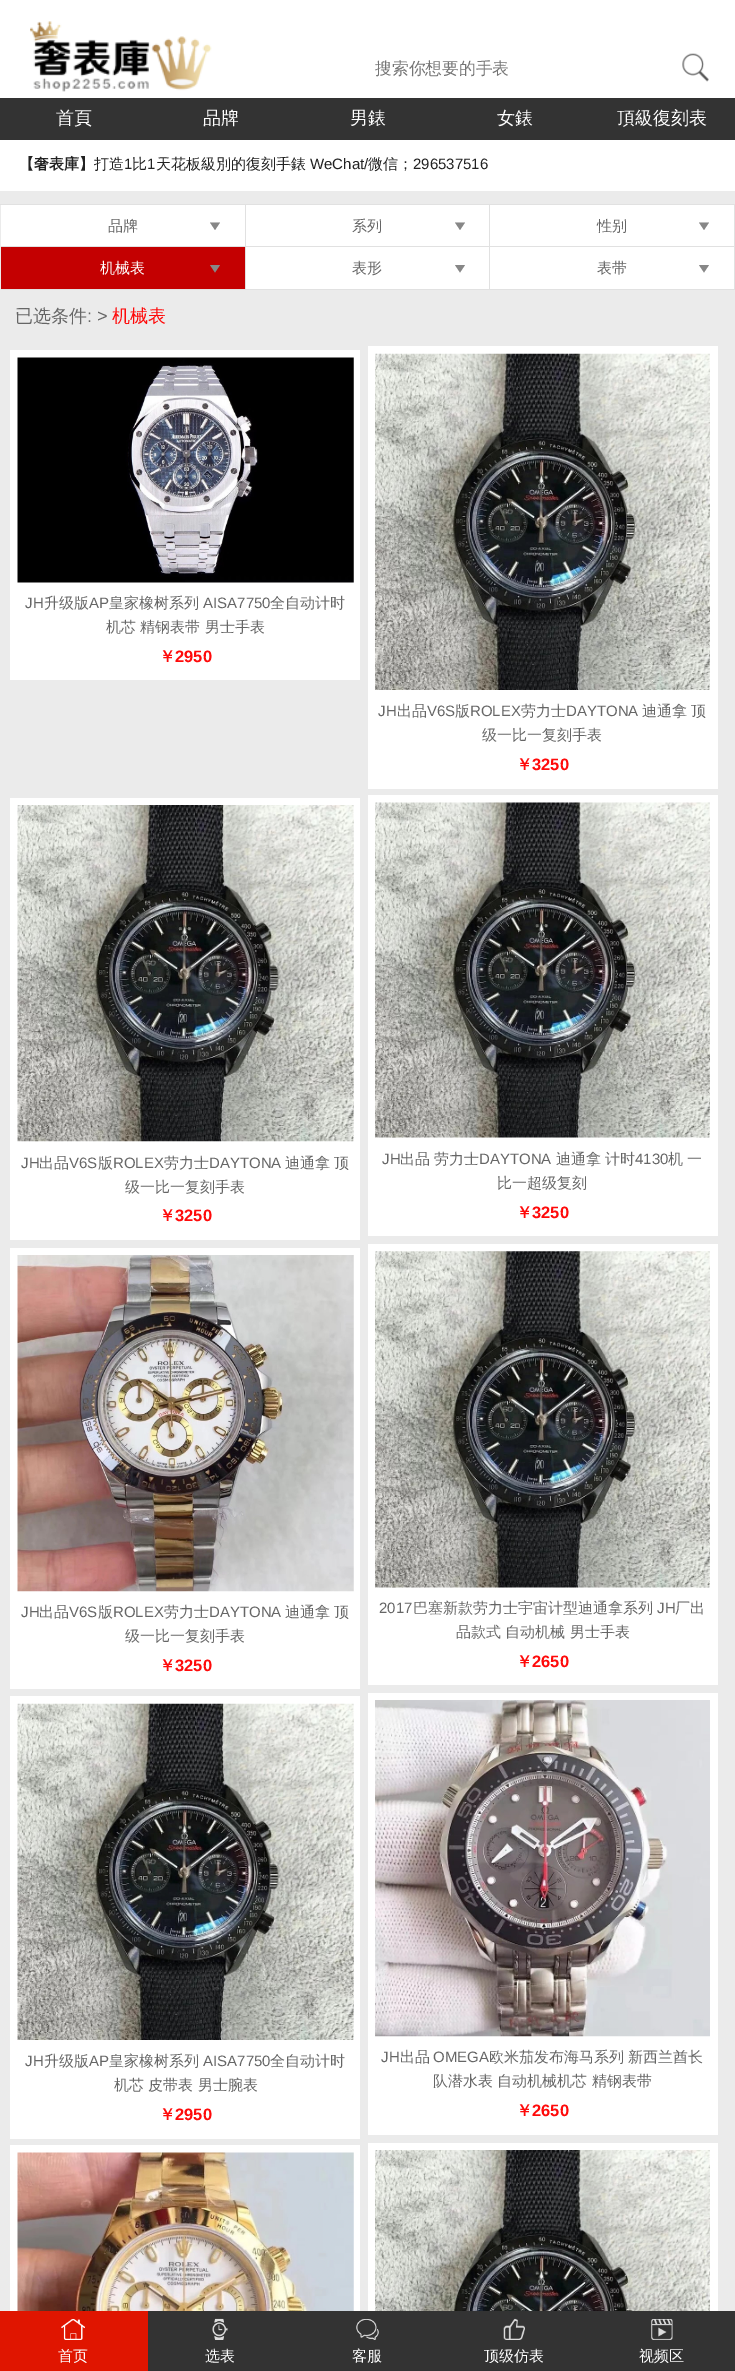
%!PS
<< /PageSize [735 2371] >> setpagedevice
/mt/moveto load def
/li/lineto load def
/cp/closepath load def
/fl/fill load def
/co { dup -16 bitshift 255 div exch dup -8 bitshift 255 and 255 div exch 255 and 255 div setrgbcolor } def
/fn { [ exch dup neg 0 0 3 -1 roll 0 0 ] selectfont } def
/tx { co fn moveto show } def
/bx { co rectfill } def
/im { 5 dict begin { /h /w /y /x /name } { exch def } forall
  gsave x y translate w h scale
  w h 8 [w 0 0 h 0 0] name (r) file false 3 colorimage grestore end } def
0 2371 translate 1 -1 scale
4 setmiterlimit
0 0 735 2371 16#EBEBEB bx
0 0 735 98 16#FFFFFF bx
(media/1.raw) 30 21 182 71 im
(media/2.raw) 682 53 27 29 im
0 98 735 42 16#333333 bx
0 140 735 51 16#FFFFFF bx
0 204 735 1 16#E1E1E1 bx
1 205 244 41 16#FFFFFF bx
245 204 1 44 16#E1E1E1 bx
16#878787 co
210 222.5 mt 220 222.5 li 215 230 li cp fl
246 205 243 41 16#FFFFFF bx
489 204 1 44 16#E1E1E1 bx
16#878787 co
455 222.5 mt 465 222.5 li 460 230 li cp fl
490 205 244 41 16#FFFFFF bx
734 204 1 44 16#E1E1E1 bx
16#878787 co
699 222.5 mt 709 222.5 li 704 230 li cp fl
1 247 244 42 16#C40001 bx
1 246 734 1 16#E1E1E1 bx
245 246 1 44 16#E1E1E1 bx
1 289 245 1 16#E1E1E1 bx
16#878787 co
210 265 mt 220 265 li 215 272.5 li cp fl
246 247 243 42 16#FFFFFF bx
489 246 1 44 16#E1E1E1 bx
246 289 244 1 16#E1E1E1 bx
16#878787 co
455 265 mt 465 265 li 460 272.5 li cp fl
490 247 244 42 16#FFFFFF bx
734 246 1 44 16#E1E1E1 bx
490 289 245 1 16#E1E1E1 bx
16#878787 co
699 265 mt 709 265 li 704 272.5 li cp fl
10 350 350 330 16#FFFFFF bx
(media/3.raw) 17 357 337 226 im
368 346 350 443 16#FFFFFF bx
(media/4.raw) 375 353 335 337 im
10 798 350 442 16#FFFFFF bx
(media/5.raw) 17 805 337 337 im
368 795 350 441 16#FFFFFF bx
(media/6.raw) 375 802 335 336 im
10 1248 350 441 16#FFFFFF bx
(media/7.raw) 17 1255 337 337 im
368 1244 350 441 16#FFFFFF bx
(media/8.raw) 375 1251 335 337 im
10 1696 350 443 16#FFFFFF bx
(media/9.raw) 17 1703 337 337 im
368 1693 350 442 16#FFFFFF bx
(media/10.raw) 375 1700 335 337 im
10 2145 350 166 16#FFFFFF bx
(media/11.raw) 17 2152 337 159 im
368 2143 350 168 16#FFFFFF bx
(media/12.raw) 375 2150 335 161 im
148 2311 587 60 16#333333 bx
0 2311 148 60 16#E01500 bx
(media/13.raw) 61 2319 24 21 im
(media/14.raw) 212 2318 16 22 im
(media/15.raw) 356 2319 23 21 im
(media/16.raw) 503 2318 22 22 im
(media/17.raw) 651 2319 22 21 im
(搜索你想要的手表) 375 74 /WenQuanYiZenHei-Medium 16.75 16#757575 tx
(首頁) 56 124 /WenQuanYiZenHei-Medium 18 16#FFFFFF tx
(品牌) 203 124 /WenQuanYiZenHei-Medium 18 16#FFFFFF tx
(男錶) 350 124 /WenQuanYiZenHei-Medium 18 16#FFFFFF tx
(女錶) 497 124 /WenQuanYiZenHei-Medium 18 16#FFFFFF tx
(頂級復刻表) 617 124 /WenQuanYiZenHei-Medium 18 16#FFFFFF tx
(【奢表庫】) 19 169 /WenQuanYiZenHei-Bold 15 16#222222 tx
(打造) 94 169 /WenQuanYiZenHei-Medium 15 16#222222 tx
(1) 124 169 /LiberationSans-Regular 15 16#222222 tx
(比) 132 169 /WenQuanYiZenHei-Medium 15 16#222222 tx
(1) 147 169 /LiberationSans-Regular 15 16#222222 tx
(天花板級別的復刻手錶) 156 169 /WenQuanYiZenHei-Medium 15 16#222222 tx
(WeChat/) 310 169 /LiberationSans-Regular 15 16#222222 tx
(微信；) 368 169 /WenQuanYiZenHei-Medium 15 16#222222 tx
(296537516) 413 169 /LiberationSans-Regular 15 16#222222 tx
(品牌) 108 231 /WenQuanYiZenHei-Medium 15 16#666666 tx
(系列) 352 231 /WenQuanYiZenHei-Medium 15 16#666666 tx
(性别) 597 231 /WenQuanYiZenHei-Medium 15 16#666666 tx
(机械表) 100 273 /WenQuanYiZenHei-Medium 15 16#FFFFFF tx
(表形) 352 273 /WenQuanYiZenHei-Medium 15 16#666666 tx
(表带) 597 273 /WenQuanYiZenHei-Medium 15 16#666666 tx
(已选条件) 15 322 /WenQuanYiZenHei-Medium 18 16#666666 tx
(: >) 87 322 /LiberationSans-Regular 18 16#666666 tx
(机械表) 112 322 /WenQuanYiZenHei-Medium 18 16#FF0A0A tx
(JH) 25 608 /LiberationSans-Regular 15 16#666666 tx
(升级版) 44 608 /WenQuanYiZenHei-Medium 15 16#666666 tx
(AP) 89 608 /LiberationSans-Regular 15 16#666666 tx
(皇家橡树系列) 109 608 /WenQuanYiZenHei-Medium 15 16#666666 tx
(AISA7750) 203 608 /LiberationSans-Regular 15 16#666666 tx
(全自动计时) 270 608 /WenQuanYiZenHei-Medium 15 16#666666 tx
(机芯 精钢表带 男士手表) 106 632 /WenQuanYiZenHei-Medium 15 16#666666 tx
(￥) 159 662 /WenQuanYiZenHei-Bold 16.5 16#FF0A0A tx
(2950) 175 662 /LiberationSans-Bold 16.5 16#FF0A0A tx
(JH) 378 716 /LiberationSans-Regular 15 16#666666 tx
(出品) 397 716 /WenQuanYiZenHei-Medium 15 16#666666 tx
(V6S) 427 716 /LiberationSans-Regular 15 16#666666 tx
(版) 455 716 /WenQuanYiZenHei-Medium 15 16#666666 tx
(ROLEX) 470 716 /LiberationSans-Regular 15 16#666666 tx
(劳力士) 521 716 /WenQuanYiZenHei-Medium 15 16#666666 tx
(DAYTONA) 566 716 /LiberationSans-Regular 15 16#666666 tx
(迪通拿 顶) 642 716 /WenQuanYiZenHei-Medium 15 16#666666 tx
(级一比一复刻手表) 482 740 /WenQuanYiZenHei-Medium 15 16#666666 tx
(￥) 516 770 /WenQuanYiZenHei-Bold 16.5 16#FF0A0A tx
(3250) 532 770 /LiberationSans-Bold 16.5 16#FF0A0A tx
(JH) 21 1168 /LiberationSans-Regular 15 16#666666 tx
(出品) 39 1168 /WenQuanYiZenHei-Medium 15 16#666666 tx
(V6S) 69 1168 /LiberationSans-Regular 15 16#666666 tx
(版) 98 1168 /WenQuanYiZenHei-Medium 15 16#666666 tx
(ROLEX) 113 1168 /LiberationSans-Regular 15 16#666666 tx
(劳力士) 164 1168 /WenQuanYiZenHei-Medium 15 16#666666 tx
(DAYTONA) 209 1168 /LiberationSans-Regular 15 16#666666 tx
(迪通拿 顶) 285 1168 /WenQuanYiZenHei-Medium 15 16#666666 tx
(级一比一复刻手表) 125 1192 /WenQuanYiZenHei-Medium 15 16#666666 tx
(￥) 159 1221 /WenQuanYiZenHei-Bold 16.5 16#FF0A0A tx
(3250) 175 1221 /LiberationSans-Bold 16.5 16#FF0A0A tx
(JH) 382 1164 /LiberationSans-Regular 15 16#666666 tx
(出品 劳力士) 400 1164 /WenQuanYiZenHei-Medium 15 16#666666 tx
(DAYTONA) 479 1164 /LiberationSans-Regular 15 16#666666 tx
(迪通拿 计时) 556 1164 /WenQuanYiZenHei-Medium 15 16#666666 tx
(4130) 635 1164 /LiberationSans-Regular 15 16#666666 tx
(机 一) 668 1164 /WenQuanYiZenHei-Medium 15 16#666666 tx
(比一超级复刻) 497 1188 /WenQuanYiZenHei-Medium 15 16#666666 tx
(￥) 516 1218 /WenQuanYiZenHei-Bold 16.5 16#FF0A0A tx
(3250) 532 1218 /LiberationSans-Bold 16.5 16#FF0A0A tx
(JH) 21 1617 /LiberationSans-Regular 15 16#666666 tx
(出品) 39 1617 /WenQuanYiZenHei-Medium 15 16#666666 tx
(V6S) 69 1617 /LiberationSans-Regular 15 16#666666 tx
(版) 98 1617 /WenQuanYiZenHei-Medium 15 16#666666 tx
(ROLEX) 113 1617 /LiberationSans-Regular 15 16#666666 tx
(劳力士) 164 1617 /WenQuanYiZenHei-Medium 15 16#666666 tx
(DAYTONA) 209 1617 /LiberationSans-Regular 15 16#666666 tx
(迪通拿 顶) 285 1617 /WenQuanYiZenHei-Medium 15 16#666666 tx
(级一比一复刻手表) 125 1641 /WenQuanYiZenHei-Medium 15 16#666666 tx
(￥) 159 1671 /WenQuanYiZenHei-Bold 16.5 16#FF0A0A tx
(3250) 175 1671 /LiberationSans-Bold 16.5 16#FF0A0A tx
(2017) 379 1613 /LiberationSans-Regular 15 16#666666 tx
(巴塞新款劳力士宇宙计型迪通拿系列) 413 1613 /WenQuanYiZenHei-Medium 15 16#666666 tx
(JH) 657 1613 /LiberationSans-Regular 15 16#666666 tx
(厂出) 675 1613 /WenQuanYiZenHei-Medium 15 16#666666 tx
(品款式 自动机械 男士手表) 456 1637 /WenQuanYiZenHei-Medium 15 16#666666 tx
(￥) 516 1667 /WenQuanYiZenHei-Bold 16.5 16#FF0A0A tx
(2650) 532 1667 /LiberationSans-Bold 16.5 16#FF0A0A tx
(JH) 25 2066 /LiberationSans-Regular 15 16#666666 tx
(升级版) 44 2066 /WenQuanYiZenHei-Medium 15 16#666666 tx
(AP) 89 2066 /LiberationSans-Regular 15 16#666666 tx
(皇家橡树系列) 109 2066 /WenQuanYiZenHei-Medium 15 16#666666 tx
(AISA7750) 203 2066 /LiberationSans-Regular 15 16#666666 tx
(全自动计时) 270 2066 /WenQuanYiZenHei-Medium 15 16#666666 tx
(机芯 皮带表 男士腕表) 114 2090 /WenQuanYiZenHei-Medium 15 16#666666 tx
(￥) 159 2120 /WenQuanYiZenHei-Bold 16.5 16#FF0A0A tx
(2950) 175 2120 /LiberationSans-Bold 16.5 16#FF0A0A tx
(JH) 381 2062 /LiberationSans-Regular 15 16#666666 tx
(出品) 400 2062 /WenQuanYiZenHei-Medium 15 16#666666 tx
(OMEGA) 433 2062 /LiberationSans-Regular 15 16#666666 tx
(欧米茄发布海马系列 新西兰酋长) 489 2062 /WenQuanYiZenHei-Medium 15 16#666666 tx
(队潜水表 自动机械机芯 精钢表带) 433 2086 /WenQuanYiZenHei-Medium 15 16#666666 tx
(￥) 516 2116 /WenQuanYiZenHei-Bold 16.5 16#FF0A0A tx
(2650) 532 2116 /LiberationSans-Bold 16.5 16#FF0A0A tx
(首页) 58 2361 /WenQuanYiZenHei-Medium 15 16#FFFFFF tx
(选表) 205 2361 /WenQuanYiZenHei-Medium 15 16#FFFFFF tx
(客服) 352 2361 /WenQuanYiZenHei-Medium 15 16#FFFFFF tx
(顶级仿表) 484 2361 /WenQuanYiZenHei-Medium 15 16#FFFFFF tx
(视频区) 639 2361 /WenQuanYiZenHei-Medium 15 16#FFFFFF tx
showpage
